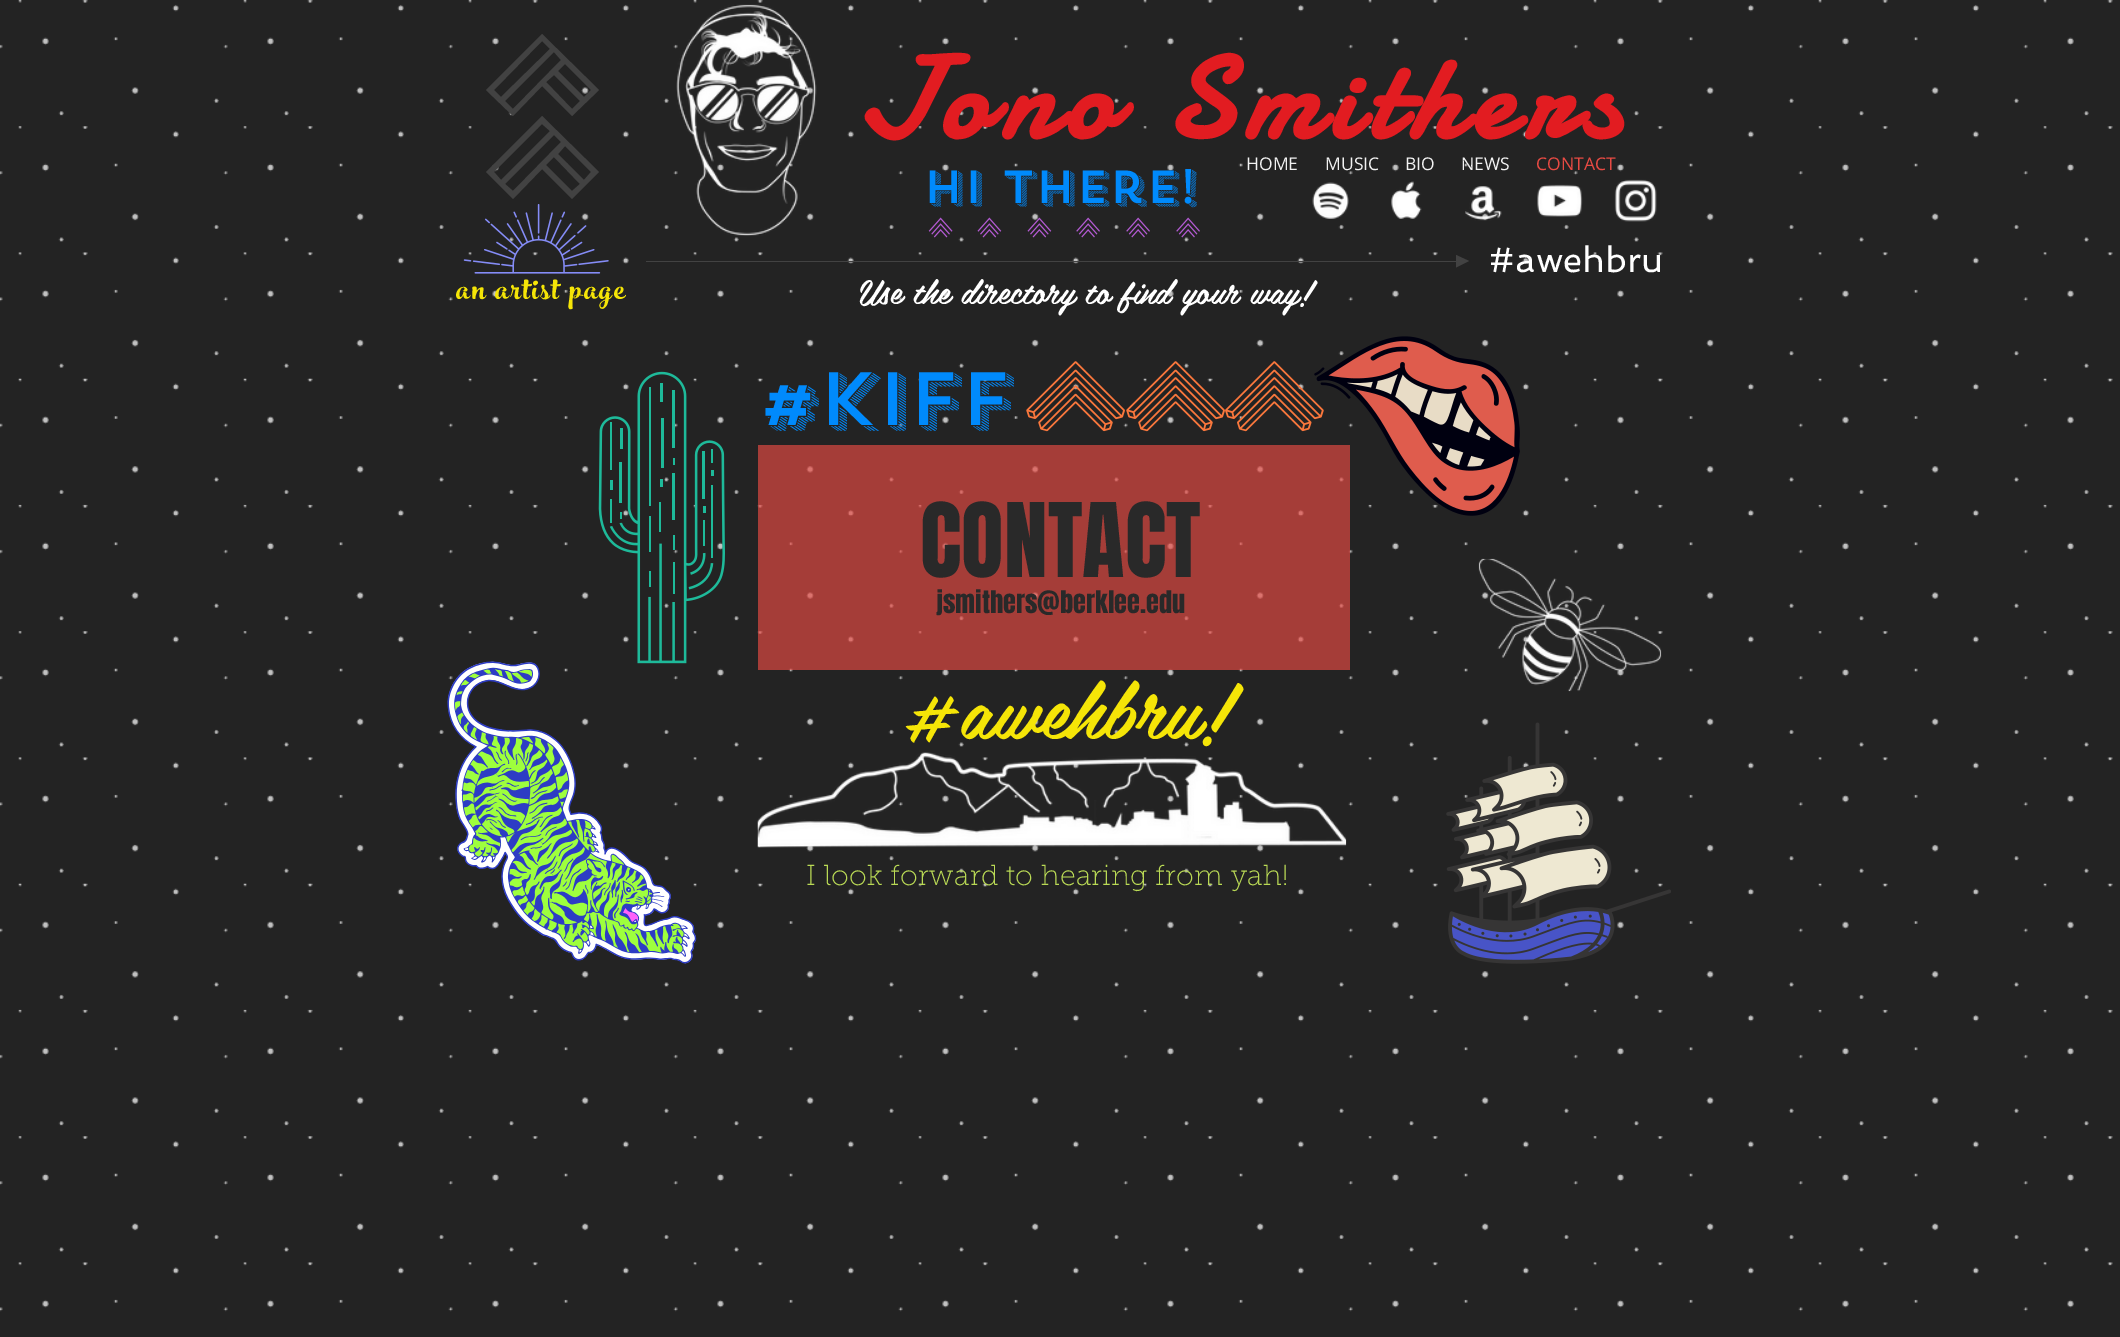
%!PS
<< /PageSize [2120 1337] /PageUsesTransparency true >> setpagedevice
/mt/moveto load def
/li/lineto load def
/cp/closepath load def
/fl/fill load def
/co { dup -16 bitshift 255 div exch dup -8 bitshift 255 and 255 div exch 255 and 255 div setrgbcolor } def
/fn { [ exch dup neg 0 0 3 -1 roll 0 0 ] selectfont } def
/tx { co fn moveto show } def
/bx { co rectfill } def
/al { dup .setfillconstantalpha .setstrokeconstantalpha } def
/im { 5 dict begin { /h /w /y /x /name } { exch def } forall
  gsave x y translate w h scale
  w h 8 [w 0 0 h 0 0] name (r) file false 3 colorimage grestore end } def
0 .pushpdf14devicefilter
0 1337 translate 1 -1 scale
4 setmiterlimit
0 0 2120 1337 16#232323 bx
(media/1.raw) 0 0 2113 1312 im
16#424242 co
599 90 mt 542 34 li 486 90 li 513 116 li 542 86 li 572 116 li cp 494 90 mt 542 41 li 550 49 li 501 97 li cp 513 109 mt 505 101 li 554 52 li 561 60 li cp 572 109 mt 546 82 li 554 75 li 580 101 li cp 584 97 mt 558 71 li 565 64 li 591 90 li cp fl
(media/2.raw) 676 4 141 232 im
599 172 mt 542 116 li 486 172 li 513 199 li 542 169 li 572 199 li cp 494 172 mt 542 124 li 550 131 li 501 180 li cp 513 191 mt 505 184 li 554 135 li 561 142 li cp 572 191 mt 546 165 li 554 157 li 580 184 li cp 584 180 mt 558 154 li 565 146 li 591 172 li cp fl
(media/3.raw) 463 204 146 70 im
(media/4.raw) 1312 182 37 37 im
(media/5.raw) 1391 181 31 38 im
(media/6.raw) 1465 186 37 35 im
(media/7.raw) 1537 184 46 33 im
(media/8.raw) 1614 179 43 43 im
(media/9.raw) 928 217 25 21 im
(media/10.raw) 977 217 25 21 im
(media/11.raw) 1027 217 25 21 im
(media/12.raw) 1076 217 24 21 im
(media/12.raw) 1126 217 24 21 im
(media/13.raw) 1176 217 24 21 im
646 261 817 1 16#424242 bx
1456 267.5 mt 1456 255 li 1469 261 li cp fl
(media/20.raw) 447 661 250 303 im
(media/14.raw) 598 371 127 293 im
(media/15.raw) 1026 361 99 71 im
(media/16.raw) 1126 361 99 71 im
0.66 al
758 445 592 225 16#E84A43 bx
1 al
(media/18.raw) 1314 336 206 180 im
(media/17.raw) 1225 361 99 71 im
(media/19.raw) 1478 558 184 134 im
(media/21.raw) 757 752 590 96 im
(media/22.raw) 1446 722 225 242 im
/Damion-Bold 116.25 fn
16#E21C21 co
858 138 mt 11.6 0 (Jono Smithers) ashow
(HOME) 1246 170 /OpenSans-Regular 17.5 16#F2F2F2 tx
(MUSIC) 1325 170 /OpenSans-Regular 17.5 16#F2F2F2 tx
(BIO) 1405 170 /OpenSans-Regular 17.5 16#F2F2F2 tx
(NEWS) 1461 170 /OpenSans-Regular 17.5 16#F2F2F2 tx
(CONTACT) 1536 170 /OpenSans-Regular 17.5 16#E84A43 tx
(Hi there!) 923 203 /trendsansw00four-Medium 46.25 16#008AFC tx
(#awehbru) 1488 272 /Spinnaker-Regular 35 16#FFFFFF tx
/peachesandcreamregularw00-Regular 46.25 fn
16#F5E507 co
456 299 mt 2.25 0 (an artist page) ashow
(Use the directory to find your way!) 859 304 /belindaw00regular-Regular 33.75 16#FFFFFF tx
(#kiff) 758 425 /trendsansw00four-Medium 75 16#008AFC tx
(CONTACT) 920 577 /Anton-Regular 87.5 16#292929 tx
(jsmithers@berklee.edu) 936 613 /Anton-Regular 26.25 16#292929 tx
(#awehbru!) 903 739 /belindaw00regular-Regular 78.75 16#F5E507 tx
/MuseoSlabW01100-Thin 28.75 fn
16#BADA55 co
806 885 mt .3 0 (I look forward to hearing from yah!) ashow
.poppdf14devicefilter showpage
